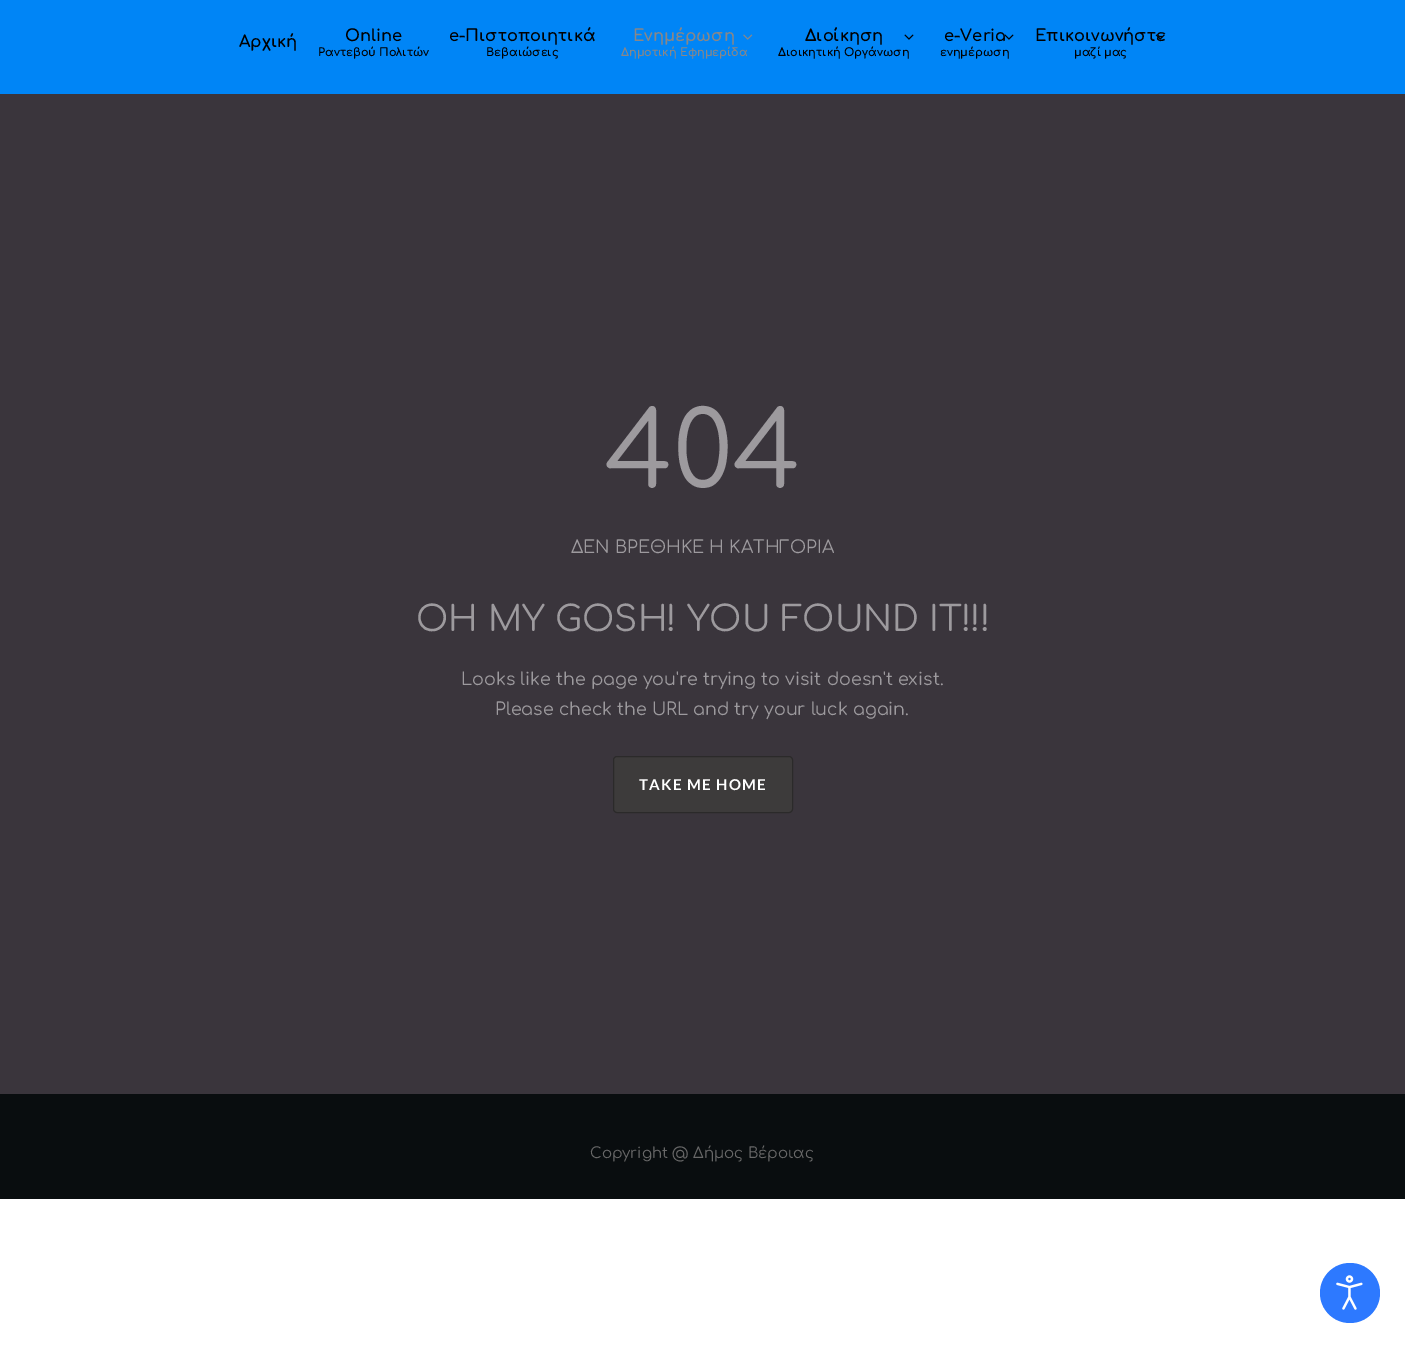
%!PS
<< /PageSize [1405 1347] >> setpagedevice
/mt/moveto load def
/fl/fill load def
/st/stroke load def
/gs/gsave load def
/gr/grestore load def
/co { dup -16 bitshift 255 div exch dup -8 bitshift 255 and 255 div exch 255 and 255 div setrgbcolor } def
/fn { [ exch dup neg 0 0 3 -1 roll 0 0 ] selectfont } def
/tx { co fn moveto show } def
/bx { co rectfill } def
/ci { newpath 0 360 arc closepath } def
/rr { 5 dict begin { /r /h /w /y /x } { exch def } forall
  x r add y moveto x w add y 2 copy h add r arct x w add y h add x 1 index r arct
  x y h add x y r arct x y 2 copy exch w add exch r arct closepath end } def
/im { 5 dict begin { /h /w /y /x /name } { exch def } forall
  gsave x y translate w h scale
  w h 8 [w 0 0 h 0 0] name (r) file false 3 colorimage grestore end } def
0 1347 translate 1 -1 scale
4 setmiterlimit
0 0 1405 1347 16#FFFFFF bx
0 0 1405 94 16#0085F6 bx
(media/1.raw) 743 34 10 6 im
(media/2.raw) 904 34 10 6 im
0 94 1405 1000 16#3A353C bx
16#3D3B3B co
613.5 756.5 179 56 3.5 rr gs fl gr
16#2B2A2A co
st
0 1094 1405 105 16#090D0F bx
16#2D79FF co
1350 1293 30 ci fl
(media/5.raw) 1336 1275 27 35 im
(Αρχική) 239 47 /Comfortaa-Bold 16.25 16#000000 tx
(Online) 345 41 /Comfortaa-Bold 16.25 16#000000 tx
(Ραντεβού Πολιτών) 318 56 /Comfortaa-Bold 11.25 16#000000 tx
(e-Πιστοποιητικά) 449 41 /Comfortaa-Bold 16.25 16#000000 tx
(Βεβαιώσεις) 486 56 /Comfortaa-Bold 11.25 16#000000 tx
(Ενημέρωση) 633 41 /Comfortaa-Bold 16.25 16#8A8787 tx
(Δημοτική Εφημερίδα) 621 56 /Comfortaa-Bold 11.25 16#8A8787 tx
(Διοίκηση) 805 41 /Comfortaa-Bold 16.25 16#000000 tx
(Διοικητική Οργάνωση) 778 56 /Comfortaa-Bold 11.25 16#000000 tx
(e-Veria) 944 41 /Comfortaa-Bold 16.25 16#000000 tx
(media/3.raw) 1004 34 10 6 im
(ενημέρωση) 940 56 /Comfortaa-Bold 11.25 16#000000 tx
(Επικοινωνήστε) 1035 41 /Comfortaa-Bold 16.25 16#000000 tx
(media/4.raw) 1155 34 10 6 im
(μαζί μας) 1074 56 /Comfortaa-Bold 11.25 16#000000 tx
(404) 605 488 /Comfortaa-Regular 105 16#9D9A9E tx
(ΔΕΝ ΒΡΕΘΗΚΕ Η ΚΑΤΗΓΟΡΙΑ) 571 553 /Comfortaa-Regular 17.5 16#9D9A9E tx
(OH MY GOSH! YOU FOUND IT!!!) 416 631 /Comfortaa-Regular 35 16#9D9A9E tx
(Looks like the page you're trying to visit doesn't exist.) 461 685 /Comfortaa-Regular 17.5 16#9D9A9E tx
(Please check the URL and try your luck again.) 495 715 /Comfortaa-Regular 17.5 16#9D9A9E tx
/Lato-Bold 15 fn
16#FFFFFF co
639 790 mt 1.25 0 (TAKE ME HOME) ashow
(Copyright @ Δήμος Βέροιας) 590 1158 /Comfortaa-Regular 15 16#686868 tx
showpage
